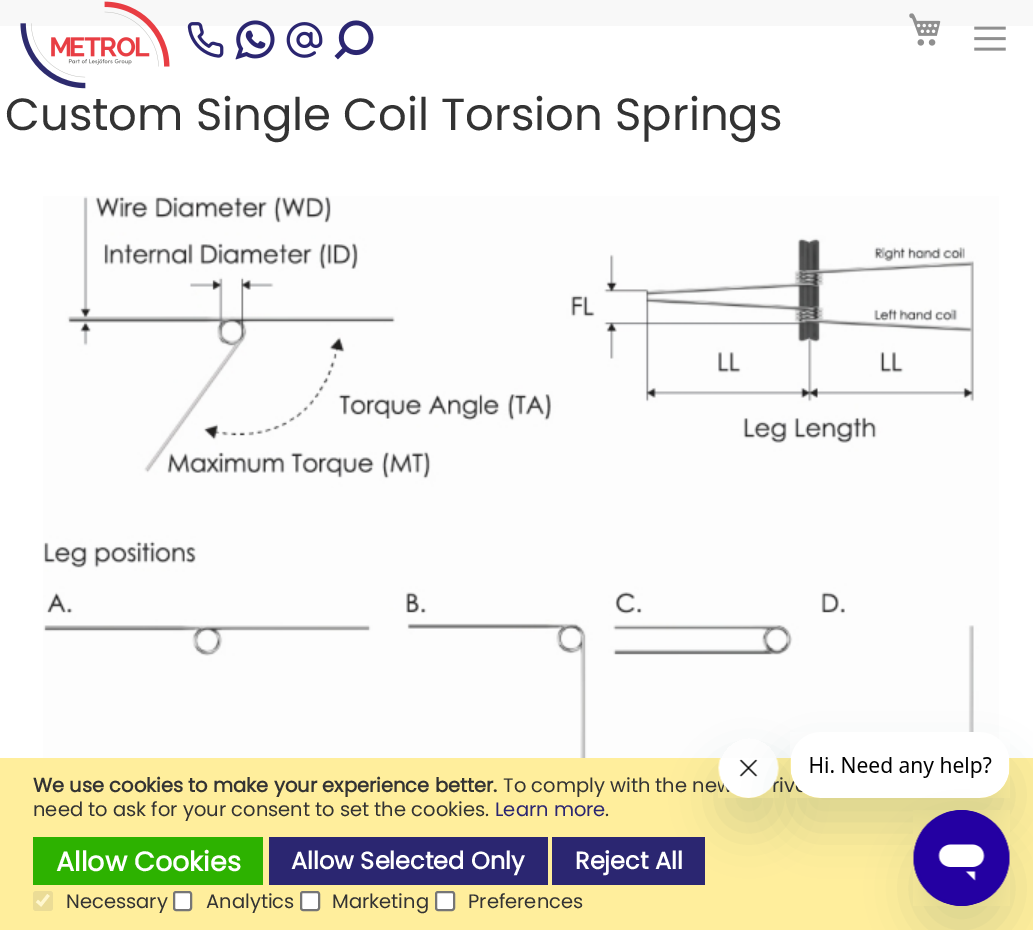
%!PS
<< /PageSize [1033 930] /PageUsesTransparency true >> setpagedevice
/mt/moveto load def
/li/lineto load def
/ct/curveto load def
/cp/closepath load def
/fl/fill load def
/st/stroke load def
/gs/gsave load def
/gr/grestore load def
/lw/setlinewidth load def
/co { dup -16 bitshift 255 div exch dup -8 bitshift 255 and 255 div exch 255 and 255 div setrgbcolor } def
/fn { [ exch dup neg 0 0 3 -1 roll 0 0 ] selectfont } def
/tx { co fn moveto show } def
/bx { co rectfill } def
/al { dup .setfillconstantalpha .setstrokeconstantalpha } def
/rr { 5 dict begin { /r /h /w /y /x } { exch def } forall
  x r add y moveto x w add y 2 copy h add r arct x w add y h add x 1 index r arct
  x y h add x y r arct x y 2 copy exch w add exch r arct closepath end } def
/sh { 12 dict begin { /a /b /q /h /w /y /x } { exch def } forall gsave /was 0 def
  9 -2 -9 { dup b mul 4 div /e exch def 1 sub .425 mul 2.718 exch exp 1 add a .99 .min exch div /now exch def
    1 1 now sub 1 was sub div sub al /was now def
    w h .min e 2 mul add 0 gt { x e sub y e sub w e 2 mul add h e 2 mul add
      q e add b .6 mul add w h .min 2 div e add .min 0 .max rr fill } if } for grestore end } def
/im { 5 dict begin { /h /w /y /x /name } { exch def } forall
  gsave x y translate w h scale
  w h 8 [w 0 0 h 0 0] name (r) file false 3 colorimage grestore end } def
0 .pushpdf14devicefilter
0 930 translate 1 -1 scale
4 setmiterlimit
0 0 1033 930 16#FFFFFF bx
0 0 1033 26 16#F8F8F8 bx
(media/1.raw) 20 1 150 88 im
(media/2.raw) 187 22 37 36 im
(media/3.raw) 235 20 40 40 im
(media/4.raw) 286 22 37 36 im
(media/5.raw) 334 20 40 40 im
(media/6.raw) 909 13 32 33 im
(media/7.raw) 974 26 32 25 im
(media/8.raw) 43 196 956 562 im
0 758 1033 172 16#FFEE9C bx
33 837 230 48 16#2DB200 bx
269 837 279 48 16#2B2671 bx
552 837 153 48 16#2B2671 bx
16#EBDC96 co
33 891 20 20 3 rr fl
16#FFF7CE co
3.1 lw
37 901 mt 41 904.5 li 48.5 895 li st
16#FFFFFF co
174 892 17 18 2 rr gs fl gr
16#767676 co
2 lw
st
16#FFFFFF co
301 892 18 18 2 rr gs fl gr
16#767676 co
st
16#FFFFFF co
436 892 18 18 2 rr gs fl gr
16#767676 co
st
gs
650 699 mt 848 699 li 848 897 li 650 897 li cp 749 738 mt 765.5 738 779 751.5 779 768 ct 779 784.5 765.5 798 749 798 ct 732.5 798 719 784.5 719 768 ct 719 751.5 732.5 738 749 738 ct cp eoclip newpath
16#17494D co
719 768 60 60 30 22.5 .15 sh
gr
(media/10.raw) 718 758 61 40 im
16#17494D co
791 762 219 66 30 22.5 .15 sh
(Custom Single Coil Torsion Springs) 5 130 /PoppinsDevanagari-Regular 45 16#333333 tx
(We use cookies to make your experience better.) 33 792 /PoppinsDevanagari-Bold 19.5 16#333333 tx
(To comply with the ne) 503 792 /PoppinsDevanagari-Regular 19.5 16#333333 tx
(iv) 779 792 /PoppinsDevanagari-Regular 19.5 16#333333 tx
(need to ask for your consent to set the cookies.) 33 816 /PoppinsDevanagari-Regular 19.5 16#333333 tx
(Learn more) 495 816 /PoppinsDevanagari-Regular 19.5 16#2B2671 tx
(.) 605 816 /PoppinsDevanagari-Regular 19.5 16#333333 tx
(Allow Cookies) 56 871 /PoppinsDevanagari-Bold 27 16#FFFFFF tx
(Allow Selected Only) 291 869 /PoppinsDevanagari-Bold 24 16#FFFFFF tx
(Reject All) 575 869 /PoppinsDevanagari-Bold 24 16#FFFFFF tx
(Necessary) 66 908 /PoppinsDevanagari-Regular 19.5 16#333333 tx
(Analytics) 206 908 /PoppinsDevanagari-Regular 19.5 16#333333 tx
(Marketing) 332 908 /PoppinsDevanagari-Regular 19.5 16#333333 tx
(Preferences) 468 908 /PoppinsDevanagari-Regular 19.5 16#333333 tx
(media/9.raw) 790 732 220 66 im
16#17494D co
914 840 96 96 48 22.5 .15 sh
(media/11.raw) 913 810 97 96 im
.poppdf14devicefilter showpage
